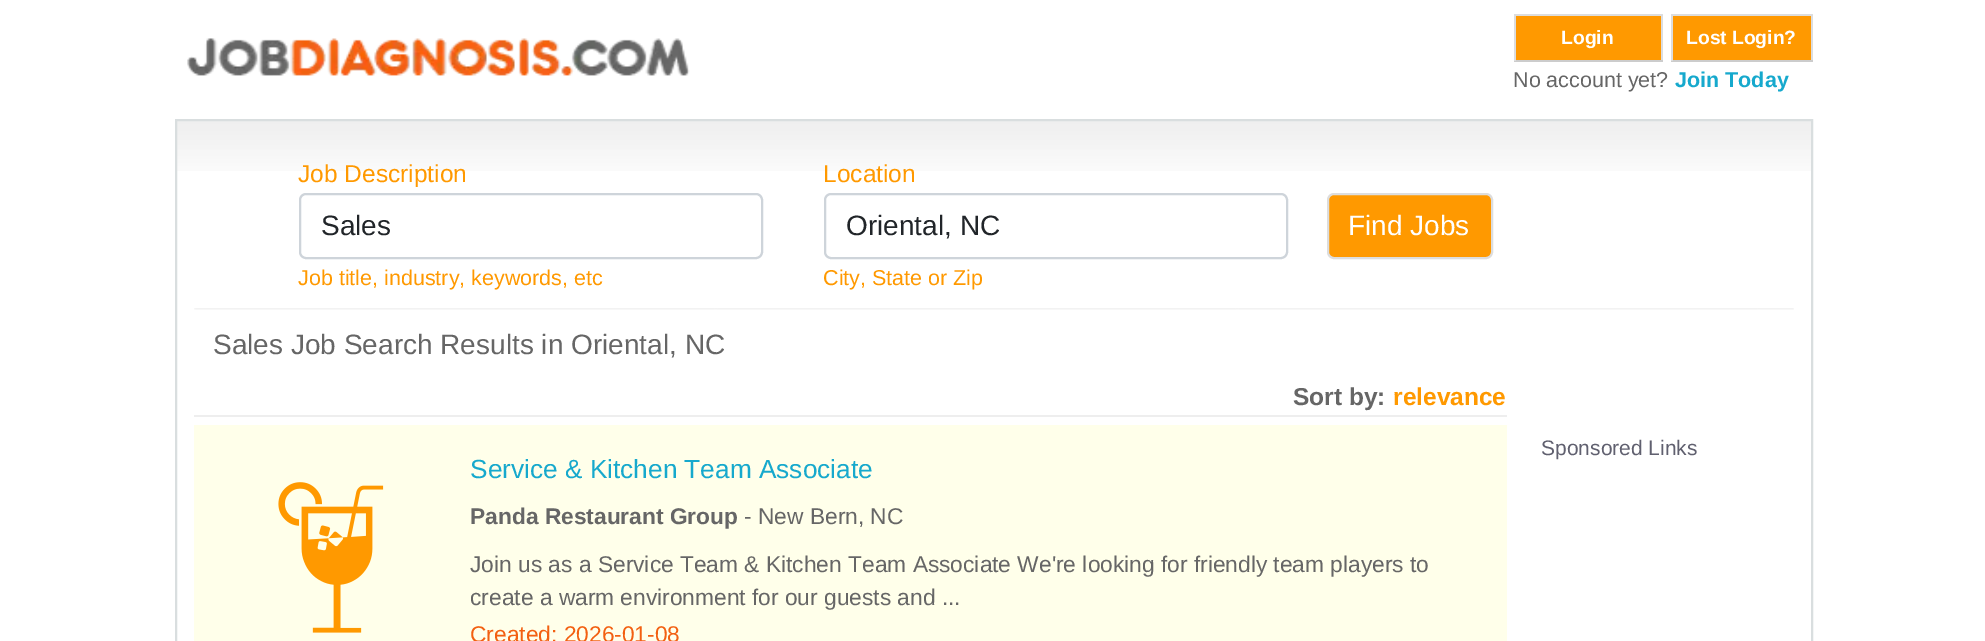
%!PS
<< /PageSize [1985 641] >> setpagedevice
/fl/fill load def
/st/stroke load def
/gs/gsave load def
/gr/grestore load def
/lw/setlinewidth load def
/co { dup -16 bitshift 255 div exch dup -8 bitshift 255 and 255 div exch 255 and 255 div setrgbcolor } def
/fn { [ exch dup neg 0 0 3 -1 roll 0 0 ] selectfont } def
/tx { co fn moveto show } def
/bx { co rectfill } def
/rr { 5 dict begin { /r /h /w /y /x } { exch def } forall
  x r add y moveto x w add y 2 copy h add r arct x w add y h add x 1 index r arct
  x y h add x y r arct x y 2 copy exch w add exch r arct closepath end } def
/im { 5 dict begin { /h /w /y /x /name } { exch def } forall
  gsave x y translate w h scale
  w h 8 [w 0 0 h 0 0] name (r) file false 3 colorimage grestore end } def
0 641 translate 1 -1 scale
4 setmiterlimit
0 0 1985 641 16#FFFFFF bx
(media/1.raw) 187 38 503 38 im
1516 16 145 44 16#FF9900 bx
1514 14 149 2 16#DDDDDD bx
1661 14 2 47 16#DDDDDD bx
1514 60 149 2 16#CCCCCC bx
1514 14 2 47 16#DDDDDD bx
1673 16 138 44 16#FF9900 bx
1671 14 142 2 16#DDDDDD bx
1811 14 2 47 16#DDDDDD bx
1671 60 142 2 16#CCCCCC bx
1671 14 2 47 16#DDDDDD bx
(media/2.raw) 177 121 1634 50 im
16#D9DEDF co
2 lw
176 120 1636 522 rectstroke
16#CED4DA co
300 194 462 64 6 rr st
825 194 462 64 6 rr st
16#FF9900 co
1328 194 164 64 6 rr gs fl gr
16#DDDDDD co
st
(media/3.raw) 194 308 1600 2 im
194 415 1313 2 16#EEEEEE bx
194 425 1313 216 16#FFFFEA bx
(media/4.raw) 278 482 106 151 im
(Login) 1561 44 /LiberationSans-Bold 19.25 16#FFFFFF tx
(Lost Login?) 1686 44 /LiberationSans-Bold 19.25 16#FFFFFF tx
(No account yet?) 1513 87 /LiberationSans-Regular 21.5 16#666666 tx
(Join Today) 1675 87 /LiberationSans-Bold 21.5 16#16A9CD tx
(Job Description) 298 182 /LiberationSans-Regular 24.5 16#FF9900 tx
(Sales) 321 235 /LiberationSans-Regular 28 16#212529 tx
(Job title, industry, keywords, etc) 298 285 /LiberationSans-Regular 21.5 16#FF9900 tx
(Location) 823 182 /LiberationSans-Regular 24.5 16#FF9900 tx
(Oriental, NC) 846 235 /LiberationSans-Regular 28 16#212529 tx
(City, State or Zip) 823 285 /LiberationSans-Regular 21.5 16#FF9900 tx
(Find Jobs) 1348 235 /LiberationSans-Regular 28 16#FFFFFF tx
(Sales Job Search Results in Oriental, NC) 213 354 /LiberationSans-Regular 28 16#666666 tx
(Sort by:) 1293 405 /LiberationSans-Bold 24.5 16#666666 tx
(relevance) 1393 405 /LiberationSans-Bold 24.5 16#FF9900 tx
(Sponsored Links) 1541 455 /LiberationSans-Regular 21 16#60606F tx
(Service & Kitchen Team Associate) 470 478 /LiberationSans-Regular 26.25 16#16A9CD tx
(Panda Restaurant Group) 470 524 /LiberationSans-Bold 22.75 16#666666 tx
(- New Bern, NC) 744 524 /LiberationSans-Regular 22.75 16#666666 tx
(Join us as a Service Team & Kitchen Team Associate We're looking for friendly team players to) 470 572 /LiberationSans-Regular 22.75 16#666666 tx
(create a warm environment for our guests and ...) 470 605 /LiberationSans-Regular 22.75 16#666666 tx
(Created: 2026-01-08) 470 642 /LiberationSans-Regular 22.75 16#F36011 tx
showpage
